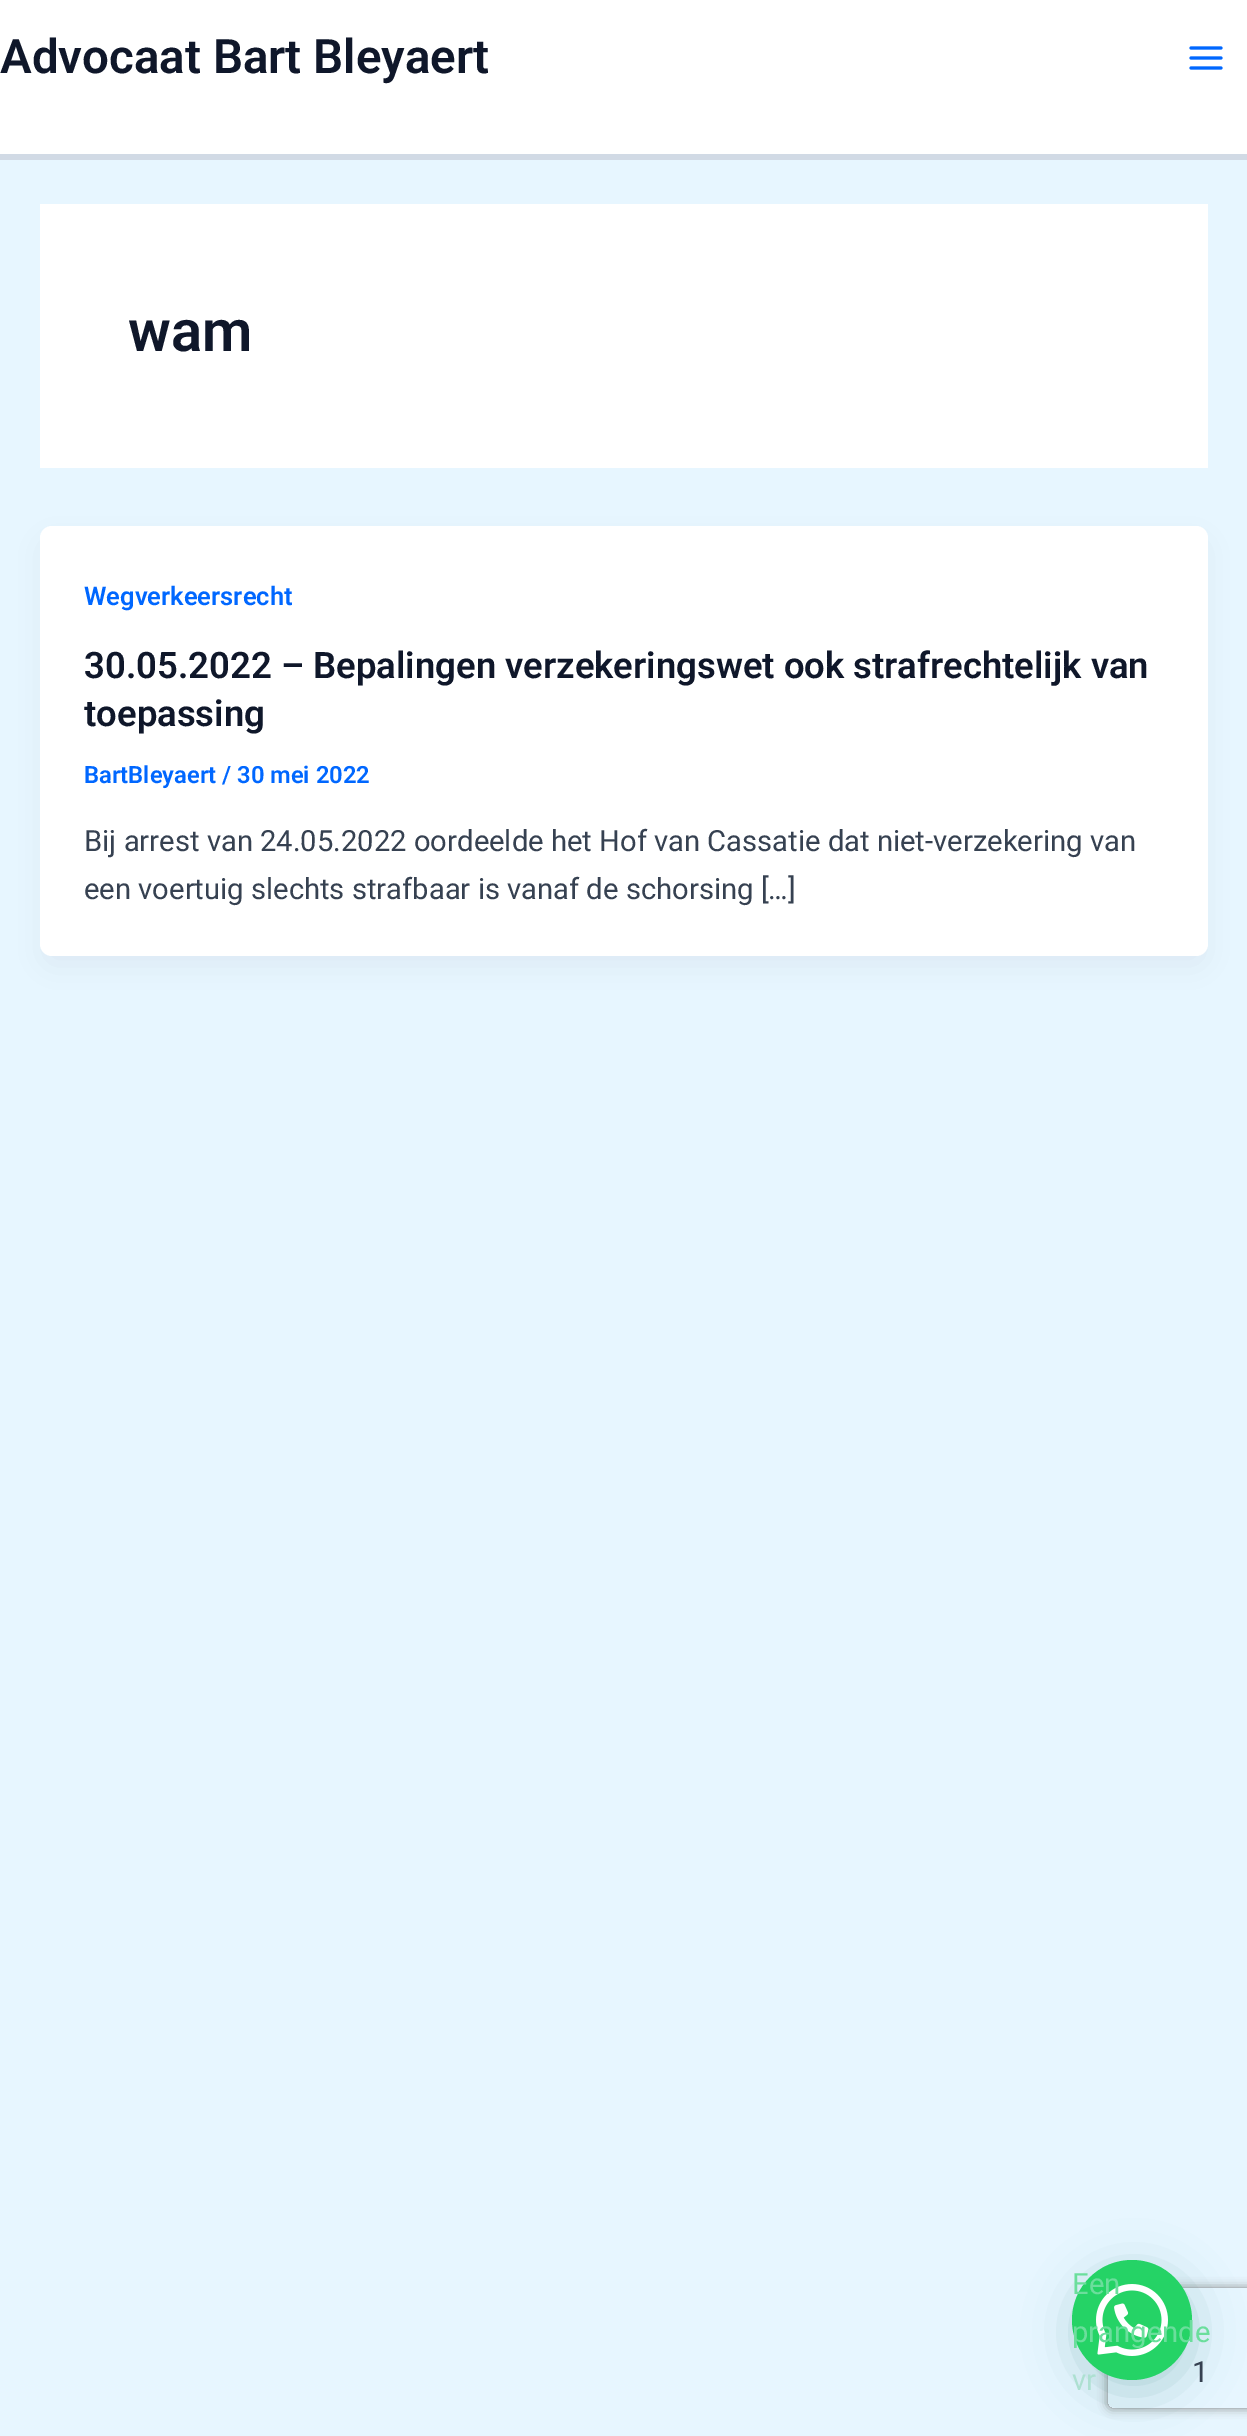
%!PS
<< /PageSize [1247 2436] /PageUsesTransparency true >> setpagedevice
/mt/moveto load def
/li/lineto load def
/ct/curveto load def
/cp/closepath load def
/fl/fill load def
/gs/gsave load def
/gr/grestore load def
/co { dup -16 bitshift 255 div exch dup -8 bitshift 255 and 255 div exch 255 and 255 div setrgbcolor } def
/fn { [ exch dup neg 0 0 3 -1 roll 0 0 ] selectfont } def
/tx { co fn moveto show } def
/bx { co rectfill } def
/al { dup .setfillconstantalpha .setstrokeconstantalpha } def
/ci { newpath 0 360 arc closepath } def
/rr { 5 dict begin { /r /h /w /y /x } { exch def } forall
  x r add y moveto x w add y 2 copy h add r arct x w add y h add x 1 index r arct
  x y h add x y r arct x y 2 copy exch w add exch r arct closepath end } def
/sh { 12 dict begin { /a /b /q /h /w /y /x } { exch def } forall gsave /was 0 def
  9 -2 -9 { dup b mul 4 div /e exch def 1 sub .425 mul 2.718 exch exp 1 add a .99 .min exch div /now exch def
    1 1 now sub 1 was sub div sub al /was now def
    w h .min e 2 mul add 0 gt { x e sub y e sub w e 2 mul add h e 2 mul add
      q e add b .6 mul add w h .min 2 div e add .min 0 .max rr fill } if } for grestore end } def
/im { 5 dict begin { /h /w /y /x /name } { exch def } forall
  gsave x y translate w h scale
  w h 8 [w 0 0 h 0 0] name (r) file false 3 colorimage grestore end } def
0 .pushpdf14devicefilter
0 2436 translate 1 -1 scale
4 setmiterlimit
0 0 1247 2436 16#E7F6FF bx
0 0 1247 154 16#FFFFFF bx
0 154 1247 6 16#D1DAE5 bx
(media/1.raw) 1189 46 34 24 im
40 204 1168 264 16#FFFFFF bx
16#101828 co
44 542 1160 422 8 15 .05 sh
16#FFFFFF co
40 526 1168 430 12 rr fl
gs
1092 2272 mt 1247 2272 li 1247 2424 li 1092 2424 li cp 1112 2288 mt 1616 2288 li 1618 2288 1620 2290 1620 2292 ct 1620 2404 li 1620 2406 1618 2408 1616 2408 ct 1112 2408 li 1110 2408 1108 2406 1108 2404 ct 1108 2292 li 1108 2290 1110 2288 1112 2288 ct cp eoclip newpath
16#808080 co
1108 2288 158 120 4 5 1 sh
gr
16#075E54 co
1074 2272 120 120 60 24 .24 sh
16#25D366 co
1132 2320 60 ci fl
(media/2.raw) 1096 2284 72 72 im
(Advocaat Bart Bleyaert) 0 73 /Roboto-SemiBold 47.5 16#0F172A tx
(wam) 128 351 /Roboto-SemiBold 58 16#0F172A tx
(Wegverkeersrecht) 84 605 /Roboto-SemiBold 25.5 16#0067FF tx
(30.05.2022 – Bepalingen verzekeringswet ook strafrechtelijk van) 84 678 /Roboto-SemiBold 36.5 16#0F172A tx
(toepassing) 84 726 /Roboto-SemiBold 36.5 16#0F172A tx
(BartBleyaert / 30 mei 2022) 84 783 /Roboto-SemiBold 23.75 16#0067FF tx
(Bij arrest van 24.05.2022 oordeelde het Hof van Cassatie dat niet-verzekering van) 84 851 /Roboto-Regular 29.2 16#364151 tx
(een voertuig slechts strafbaar is vanaf de schorsing […]) 84 899 /Roboto-Regular 29.2 16#364151 tx
(Een) 1072 2294 /Roboto-Regular 29.2 16#6BDE9C tx
(prangende) 1072 2342 /Roboto-Regular 29.2 16#6BDE9C tx
(vr) 1072 2390 /Roboto-Regular 29.2 16#ADE0D1 tx
(1) 1192 2382 /Roboto-Regular 29.2 16#364151 tx
.poppdf14devicefilter showpage
